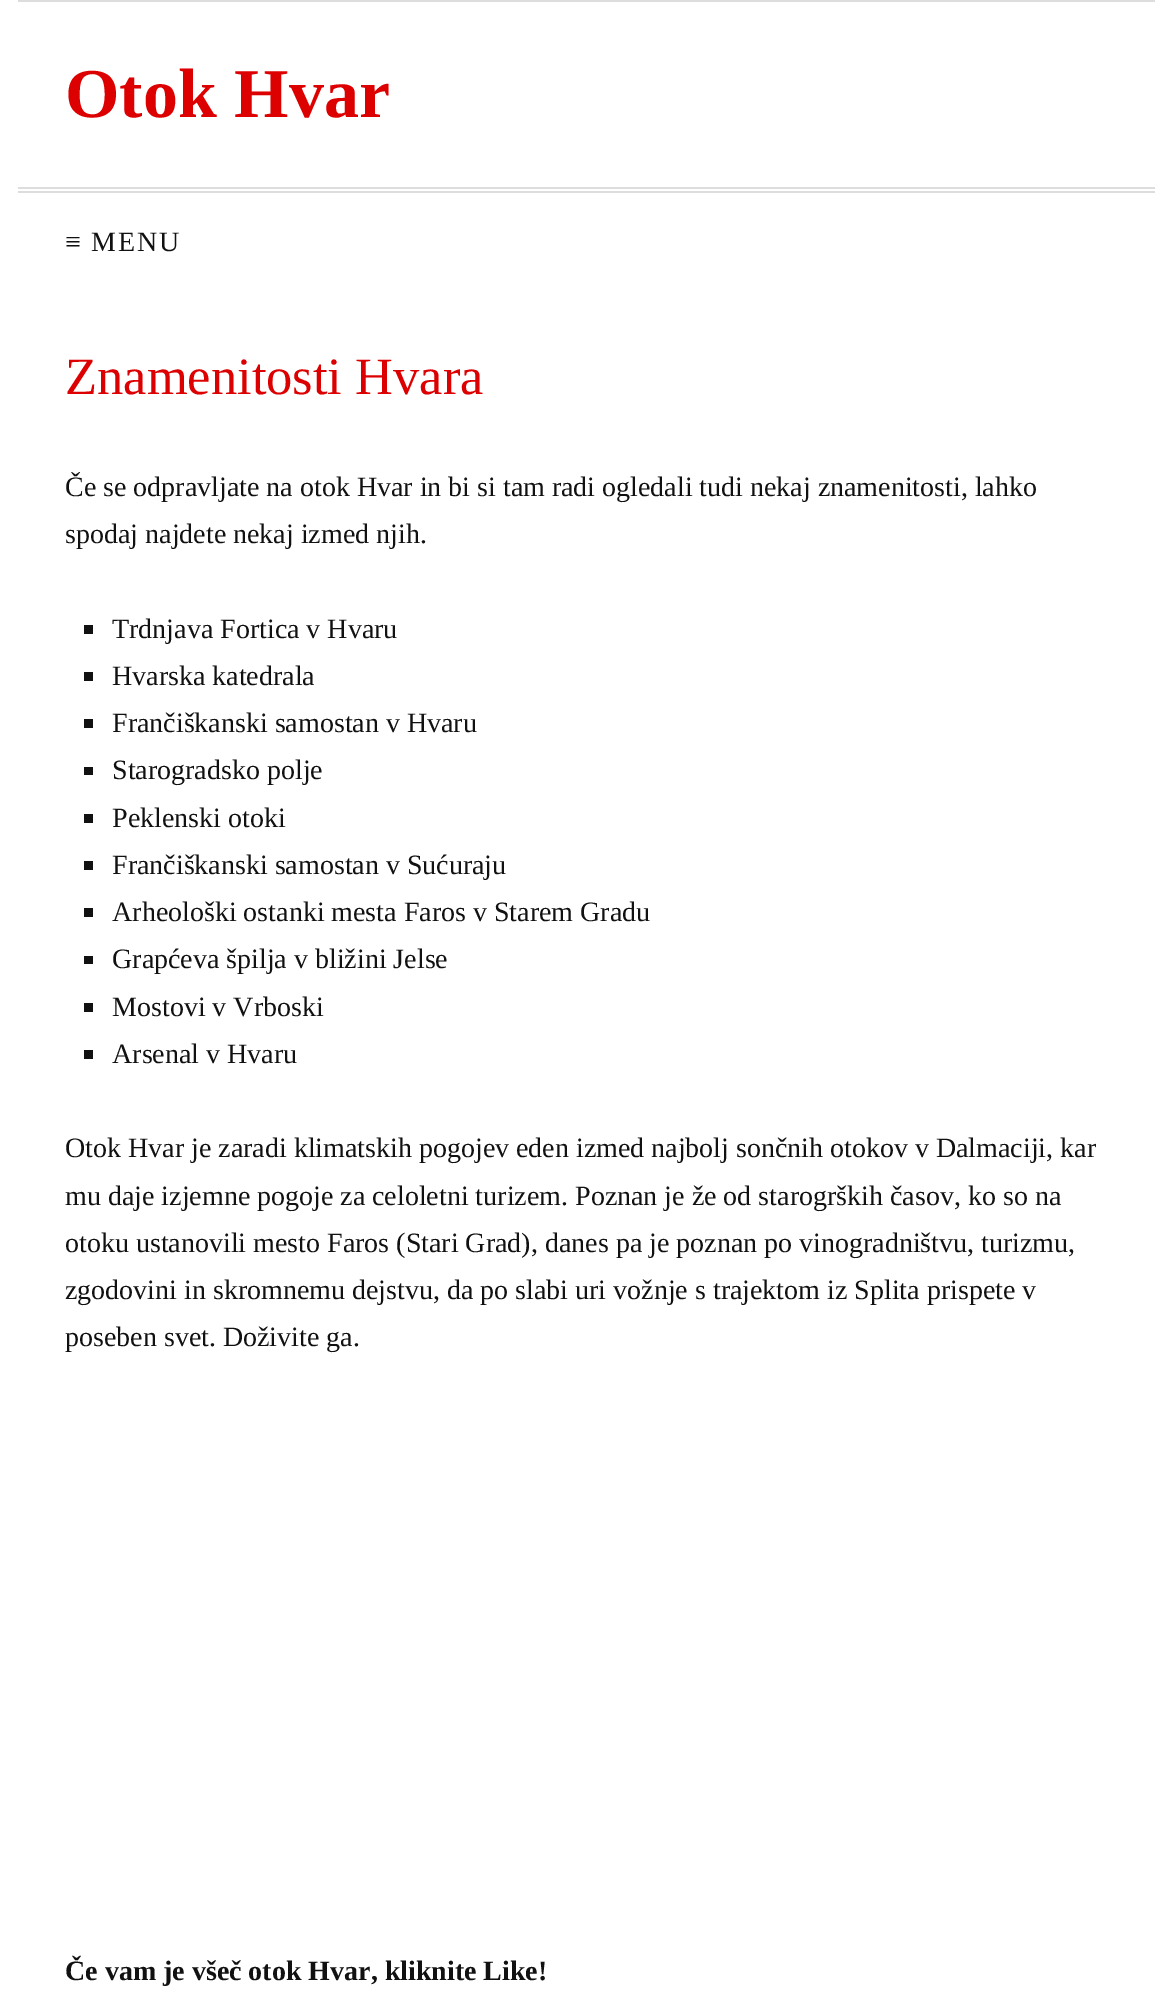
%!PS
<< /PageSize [1171 2010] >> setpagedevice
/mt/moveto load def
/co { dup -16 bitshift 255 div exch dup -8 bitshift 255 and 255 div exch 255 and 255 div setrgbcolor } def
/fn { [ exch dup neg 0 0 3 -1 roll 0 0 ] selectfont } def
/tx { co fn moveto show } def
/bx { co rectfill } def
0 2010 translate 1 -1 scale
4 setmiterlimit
0 0 1171 2010 16#FFFFFF bx
18 0 1137 2 16#DDDDDD bx
18 187 1137 2 16#DDDDDD bx
18 191 1137 2 16#DDDDDD bx
84 625 9 9 16#111111 bx
84 672 9 9 16#111111 bx
84 719 9 9 16#111111 bx
84 767 9 8 16#111111 bx
84 814 9 9 16#111111 bx
84 861 9 9 16#111111 bx
84 908 9 9 16#111111 bx
84 956 9 8 16#111111 bx
84 1003 9 9 16#111111 bx
84 1050 9 9 16#111111 bx
(Otok Hvar) 65 117 /LiberationSerif-Bold 70 16#DD0000 tx
/LiberationSerif-Regular 28 fn
16#111111 co
65 251 mt 1.75 0 (≡ MENU) ashow
(Znamenitosti Hvara) 65 394 /LiberationSerif-Regular 52.5 16#DD0000 tx
(Če se odpravljate na otok Hvar in bi si tam radi ogledali tudi nekaj znamenitosti, lahko) 65 496 /LiberationSerif-Regular 28 16#111111 tx
(spodaj najdete nekaj izmed njih.) 65 543 /LiberationSerif-Regular 28 16#111111 tx
(Trdnjava Fortica v Hvaru) 112 638 /LiberationSerif-Regular 28 16#111111 tx
(Hvarska katedrala) 112 685 /LiberationSerif-Regular 28 16#111111 tx
(Frančiškanski samostan v Hvaru) 112 732 /LiberationSerif-Regular 28 16#111111 tx
(Starogradsko polje) 112 779 /LiberationSerif-Regular 28 16#111111 tx
(Peklenski otoki) 112 827 /LiberationSerif-Regular 28 16#111111 tx
(Frančiškanski samostan v Sućuraju) 112 874 /LiberationSerif-Regular 28 16#111111 tx
(Arheološki ostanki mesta Faros v Starem Gradu) 112 921 /LiberationSerif-Regular 28 16#111111 tx
(Grapćeva špilja v bližini Jelse) 112 968 /LiberationSerif-Regular 28 16#111111 tx
(Mostovi v Vrboski) 112 1016 /LiberationSerif-Regular 28 16#111111 tx
(Arsenal v Hvaru) 112 1063 /LiberationSerif-Regular 28 16#111111 tx
(Otok Hvar je zaradi klimatskih pogojev eden izmed najbolj sončnih otokov v Dalmaciji, kar) 65 1157 /LiberationSerif-Regular 28 16#111111 tx
(mu daje izjemne pogoje za celoletni turizem. Poznan je že od starogrških časov, ko so na) 65 1205 /LiberationSerif-Regular 28 16#111111 tx
(otoku ustanovili mesto Faros \(Stari Grad\), danes pa je poznan po vinogradništvu, turizmu,) 65 1252 /LiberationSerif-Regular 28 16#111111 tx
(zgodovini in skromnemu dejstvu, da po slabi uri vožnje s trajektom iz Splita prispete v) 65 1299 /LiberationSerif-Regular 28 16#111111 tx
(poseben svet. Doživite ga.) 65 1346 /LiberationSerif-Regular 28 16#111111 tx
(Če vam je všeč otok Hvar, kliknite Like!) 65 1980 /LiberationSerif-Bold 28 16#111111 tx
showpage
